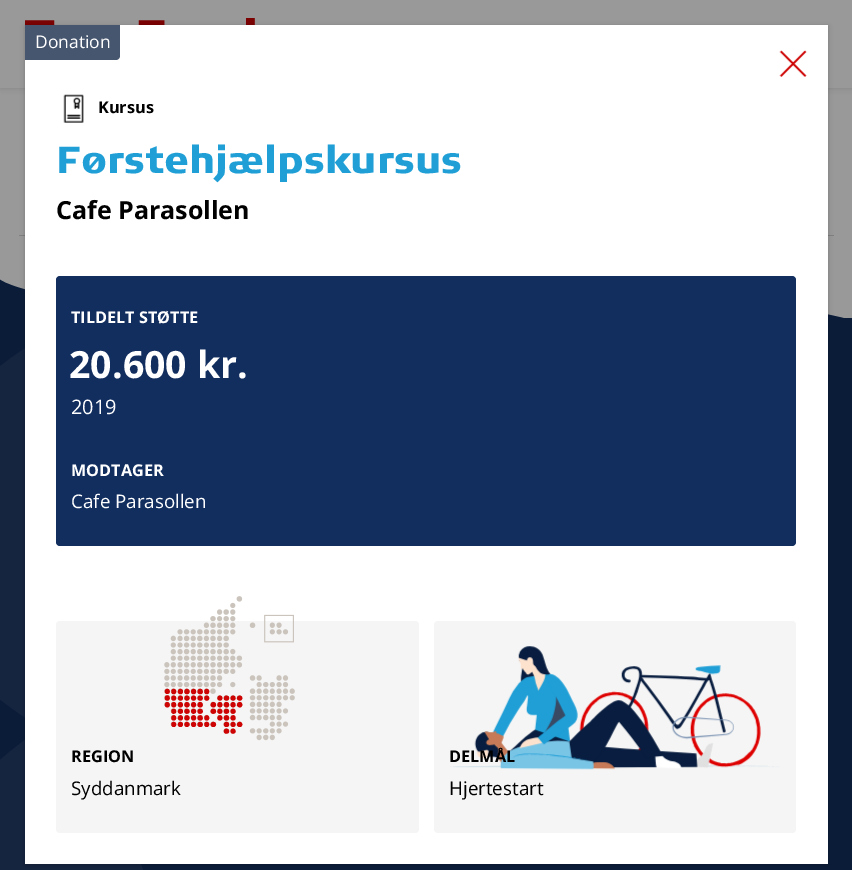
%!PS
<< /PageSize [852 870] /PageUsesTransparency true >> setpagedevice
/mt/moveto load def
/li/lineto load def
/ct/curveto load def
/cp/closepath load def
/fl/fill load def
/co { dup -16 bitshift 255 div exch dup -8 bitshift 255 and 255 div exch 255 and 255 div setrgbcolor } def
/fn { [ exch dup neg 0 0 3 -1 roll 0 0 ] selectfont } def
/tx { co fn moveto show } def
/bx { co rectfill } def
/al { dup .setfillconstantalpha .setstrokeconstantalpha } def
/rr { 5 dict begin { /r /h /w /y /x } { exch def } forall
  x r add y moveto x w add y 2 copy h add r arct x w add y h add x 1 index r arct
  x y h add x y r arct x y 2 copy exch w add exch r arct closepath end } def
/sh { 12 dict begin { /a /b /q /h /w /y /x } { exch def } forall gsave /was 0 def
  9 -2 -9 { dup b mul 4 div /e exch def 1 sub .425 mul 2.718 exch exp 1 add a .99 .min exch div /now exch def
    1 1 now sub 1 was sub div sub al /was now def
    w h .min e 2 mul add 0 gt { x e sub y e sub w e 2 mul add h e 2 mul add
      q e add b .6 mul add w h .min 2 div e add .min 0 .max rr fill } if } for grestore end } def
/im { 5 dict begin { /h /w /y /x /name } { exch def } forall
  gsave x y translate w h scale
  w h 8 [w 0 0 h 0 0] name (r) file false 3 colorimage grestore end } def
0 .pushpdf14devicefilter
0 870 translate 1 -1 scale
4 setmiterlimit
0 0 852 870 16#999999 bx
16#000000 co
0 1 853 88 0 2.5 .1 sh
0 0 852 88 16#999999 bx
(media/1.raw) 25 18 230 7 im
19 235 815 1 16#808080 bx
0 318 852 552 16#0B1C39 bx
(media/6.raw) 0 279 844 39 im
(media/7.raw) 0 348 143 522 im
16#000000 co
25 26 803 839 0 2.5 .2 sh
25 25 803 839 16#FFFFFF bx
16#46566F co
25 25 mt 120 25 li 120 56 li 120 58 118 60 116 60 ct 25 60 li cp fl
(media/2.raw) 779 50 28 27 im
(media/3.raw) 63 94 21 29 im
16#122E5F co
56 276 740 270 4 rr fl
16#F5F5F5 co
56 621 363 212 4 rr fl
(media/4.raw) 164 596 131 145 im
434 621 362 212 4 rr fl
(media/5.raw) 450 646 330 124 im
(Donation) 35 48 /OpenSans-Regular 17.5 16#FFFFFF tx
(Kursus) 98 113 /OpenSans-Bold 16.25 16#000000 tx
(Førstehjælpskursus) 56 173 /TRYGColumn-Black 37.5 16#1F9FD6 tx
(Cafe Parasollen) 56 219 /OpenSans-Bold 25 16#000000 tx
(TILDELT STØTTE) 71 323 /OpenSans-Bold 16.25 16#FFFFFF tx
(20.600 kr.) 69 378 /OpenSans-Bold 37.5 16#FFFFFF tx
(2019) 71 414 /OpenSans-Regular 20 16#FFFFFF tx
(MODTAGER) 71 476 /OpenSans-Bold 16.25 16#FFFFFF tx
(Cafe Parasollen) 71 508 /OpenSans-Regular 18.75 16#FFFFFF tx
(:) 153 744 /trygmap-Regular 150 16#CE0303 tx
(REGION) 71 762 /OpenSans-Bold 16.25 16#000000 tx
(Syddanmark) 71 795 /OpenSans-Regular 18.75 16#000000 tx
(DELMÅL) 449 762 /OpenSans-Bold 16.25 16#000000 tx
(Hjertestart) 449 795 /OpenSans-Regular 18.75 16#000000 tx
.poppdf14devicefilter showpage
